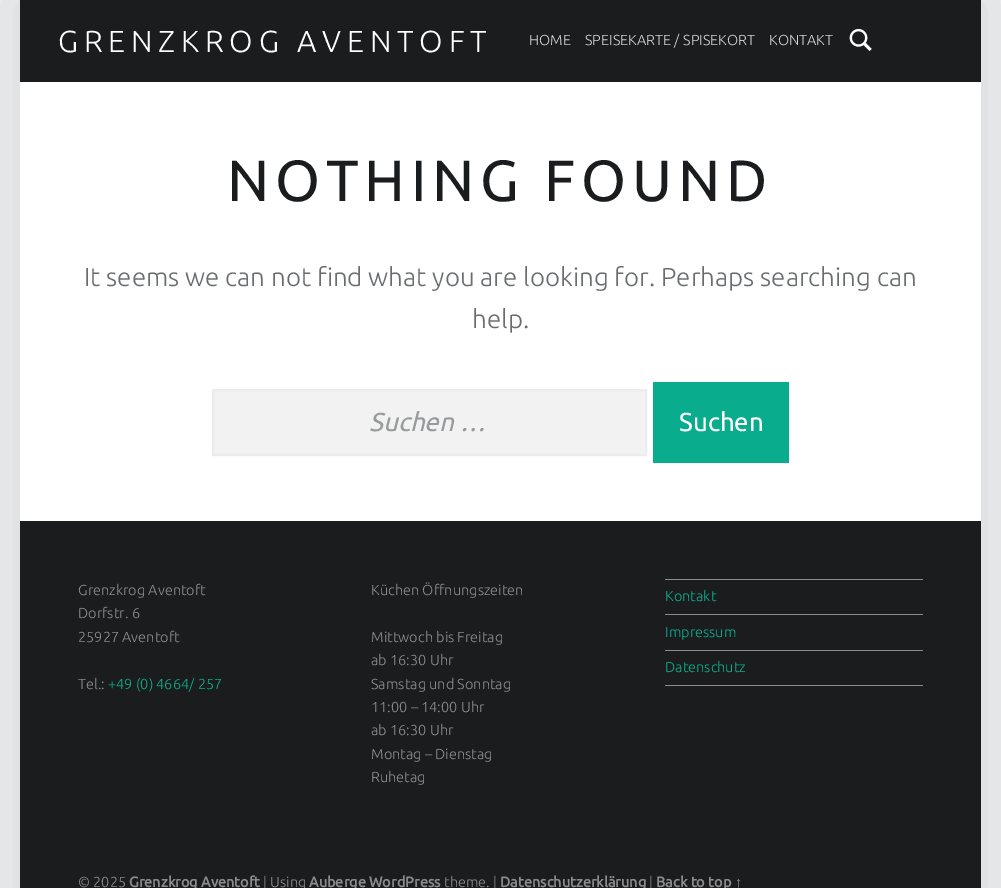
%!PS
<< /PageSize [1001 888] /PageUsesTransparency true >> setpagedevice
/mt/moveto load def
/li/lineto load def
/cp/closepath load def
/fl/fill load def
/st/stroke load def
/gs/gsave load def
/gr/grestore load def
/lw/setlinewidth load def
/co { dup -16 bitshift 255 div exch dup -8 bitshift 255 and 255 div exch 255 and 255 div setrgbcolor } def
/fn { [ exch dup neg 0 0 3 -1 roll 0 0 ] selectfont } def
/tx { co fn moveto show } def
/bx { co rectfill } def
/al { dup .setfillconstantalpha .setstrokeconstantalpha } def
/rr { 5 dict begin { /r /h /w /y /x } { exch def } forall
  x r add y moveto x w add y 2 copy h add r arct x w add y h add x 1 index r arct
  x y h add x y r arct x y 2 copy exch w add exch r arct closepath end } def
/sh { 12 dict begin { /a /b /q /h /w /y /x } { exch def } forall gsave /was 0 def
  9 -2 -9 { dup b mul 4 div /e exch def 1 sub .425 mul 2.718 exch exp 1 add a .99 .min exch div /now exch def
    1 1 now sub 1 was sub div sub al /was now def
    w h .min e 2 mul add 0 gt { x e sub y e sub w e 2 mul add h e 2 mul add
      q e add b .6 mul add w h .min 2 div e add .min 0 .max rr fill } if } for grestore end } def
/im { 5 dict begin { /h /w /y /x /name } { exch def } forall
  gsave x y translate w h scale
  w h 8 [w 0 0 h 0 0] name (r) file false 3 colorimage grestore end } def
0 .pushpdf14devicefilter
0 888 translate 1 -1 scale
4 setmiterlimit
0 0 1001 888 16#EAECEE bx
16#000000 co
20 0 961 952 0 29 .07 sh
20 82 961 439 16#FFFFFF bx
20 0 961 82 16#1A1C1E bx
(media/1.raw) 849 28 23 23 im
16#F2F2F2 co
213 390 mt 646 390 li 646 455 li 213 455 li cp gs fl gr
16#EAECEE co
2 lw
st
653 382 136 81 16#0AAC8E bx
20 521 961 367 16#1A1C1E bx
665 579 258 1 16#8A8C8E bx
665 614 258 1 16#8A8C8E bx
665 650 258 1 16#8A8C8E bx
665 685 258 1 16#8A8C8E bx
/Ubuntu-Light 30.4 fn
16#FFFFFF co
58 52 mt 5.75 0 (GRENZKROG AVENTOFT) ashow
(HOME) 529 45 /Ubuntu-Light 14.5 16#D1D2D2 tx
(SPEISEKARTE / SPISEKORT) 585 45 /Ubuntu-Light 14.5 16#D1D2D2 tx
(KONTAKT) 769 45 /Ubuntu-Light 14.5 16#D1D2D2 tx
/Ubuntu-Regular 58 fn
16#1A1C1E co
227 201 mt 5.75 0 (NOTHING FOUND) ashow
(It seems we can not find what you are looking for. Perhaps searching can) 84 286 /Ubuntu-Light 25.9 16#6A6C6E tx
(help.) 472 328 /Ubuntu-Light 25.9 16#6A6C6E tx
(Suchen …) 369 431 /Ubuntu-Italic 25.9 16#989A9B tx
(Suchen) 679 431 /Ubuntu-Regular 25.9 16#FFFFFF tx
(Grenzkrog Aventoft) 78 595 /Ubuntu-Light 14.5 16#8A8C8E tx
(Dorfstr. 6) 78 618 /Ubuntu-Light 14.5 16#8A8C8E tx
(25927 Aventoft) 78 642 /Ubuntu-Light 14.5 16#8A8C8E tx
(Tel.:) 78 689 /Ubuntu-Light 14.5 16#8A8C8E tx
(+49 \(0\) 4664/ 257) 108 689 /Ubuntu-Light 14.5 16#0AAC8E tx
(Küchen Öffnungszeiten) 371 595 /Ubuntu-Light 14.5 16#8A8C8E tx
(Mittwoch bis Freitag) 371 642 /Ubuntu-Light 14.5 16#8A8C8E tx
(ab 16:30 Uhr) 371 665 /Ubuntu-Light 14.5 16#8A8C8E tx
(Samstag und Sonntag) 371 689 /Ubuntu-Light 14.5 16#8A8C8E tx
(11:00 – 14:00 Uhr) 371 712 /Ubuntu-Light 14.5 16#8A8C8E tx
(ab 16:30 Uhr) 371 735 /Ubuntu-Light 14.5 16#8A8C8E tx
(Montag – Dienstag) 371 759 /Ubuntu-Light 14.5 16#8A8C8E tx
(Ruhetag) 371 782 /Ubuntu-Light 14.5 16#8A8C8E tx
(Kontakt) 665 601 /Ubuntu-Light 14.5 16#0AAC8E tx
(Impressum) 665 637 /Ubuntu-Light 14.5 16#0AAC8E tx
(Datenschutz) 665 672 /Ubuntu-Light 14.5 16#0AAC8E tx
(© 2025) 78 887 /Ubuntu-Light 14.5 16#8A8C8E tx
(Grenzkrog Aventoft) 129 887 /Ubuntu-Bold 14.5 16#8A8C8E tx
(| Using) 263 887 /Ubuntu-Light 14.5 16#8A8C8E tx
(Auberge WordPress) 309 887 /Ubuntu-Bold 14.5 16#8A8C8E tx
(theme. |) 444 887 /Ubuntu-Light 14.5 16#8A8C8E tx
(Datenschutzerklärung) 500 887 /Ubuntu-Bold 14.5 16#8A8C8E tx
(|) 649 887 /Ubuntu-Light 14.5 16#8A8C8E tx
(Back to top) 656 887 /Ubuntu-Bold 14.5 16#8A8C8E tx
(↑) 735 887 /LiberationSans-Bold 14.5 16#8A8C8E tx
.poppdf14devicefilter showpage
